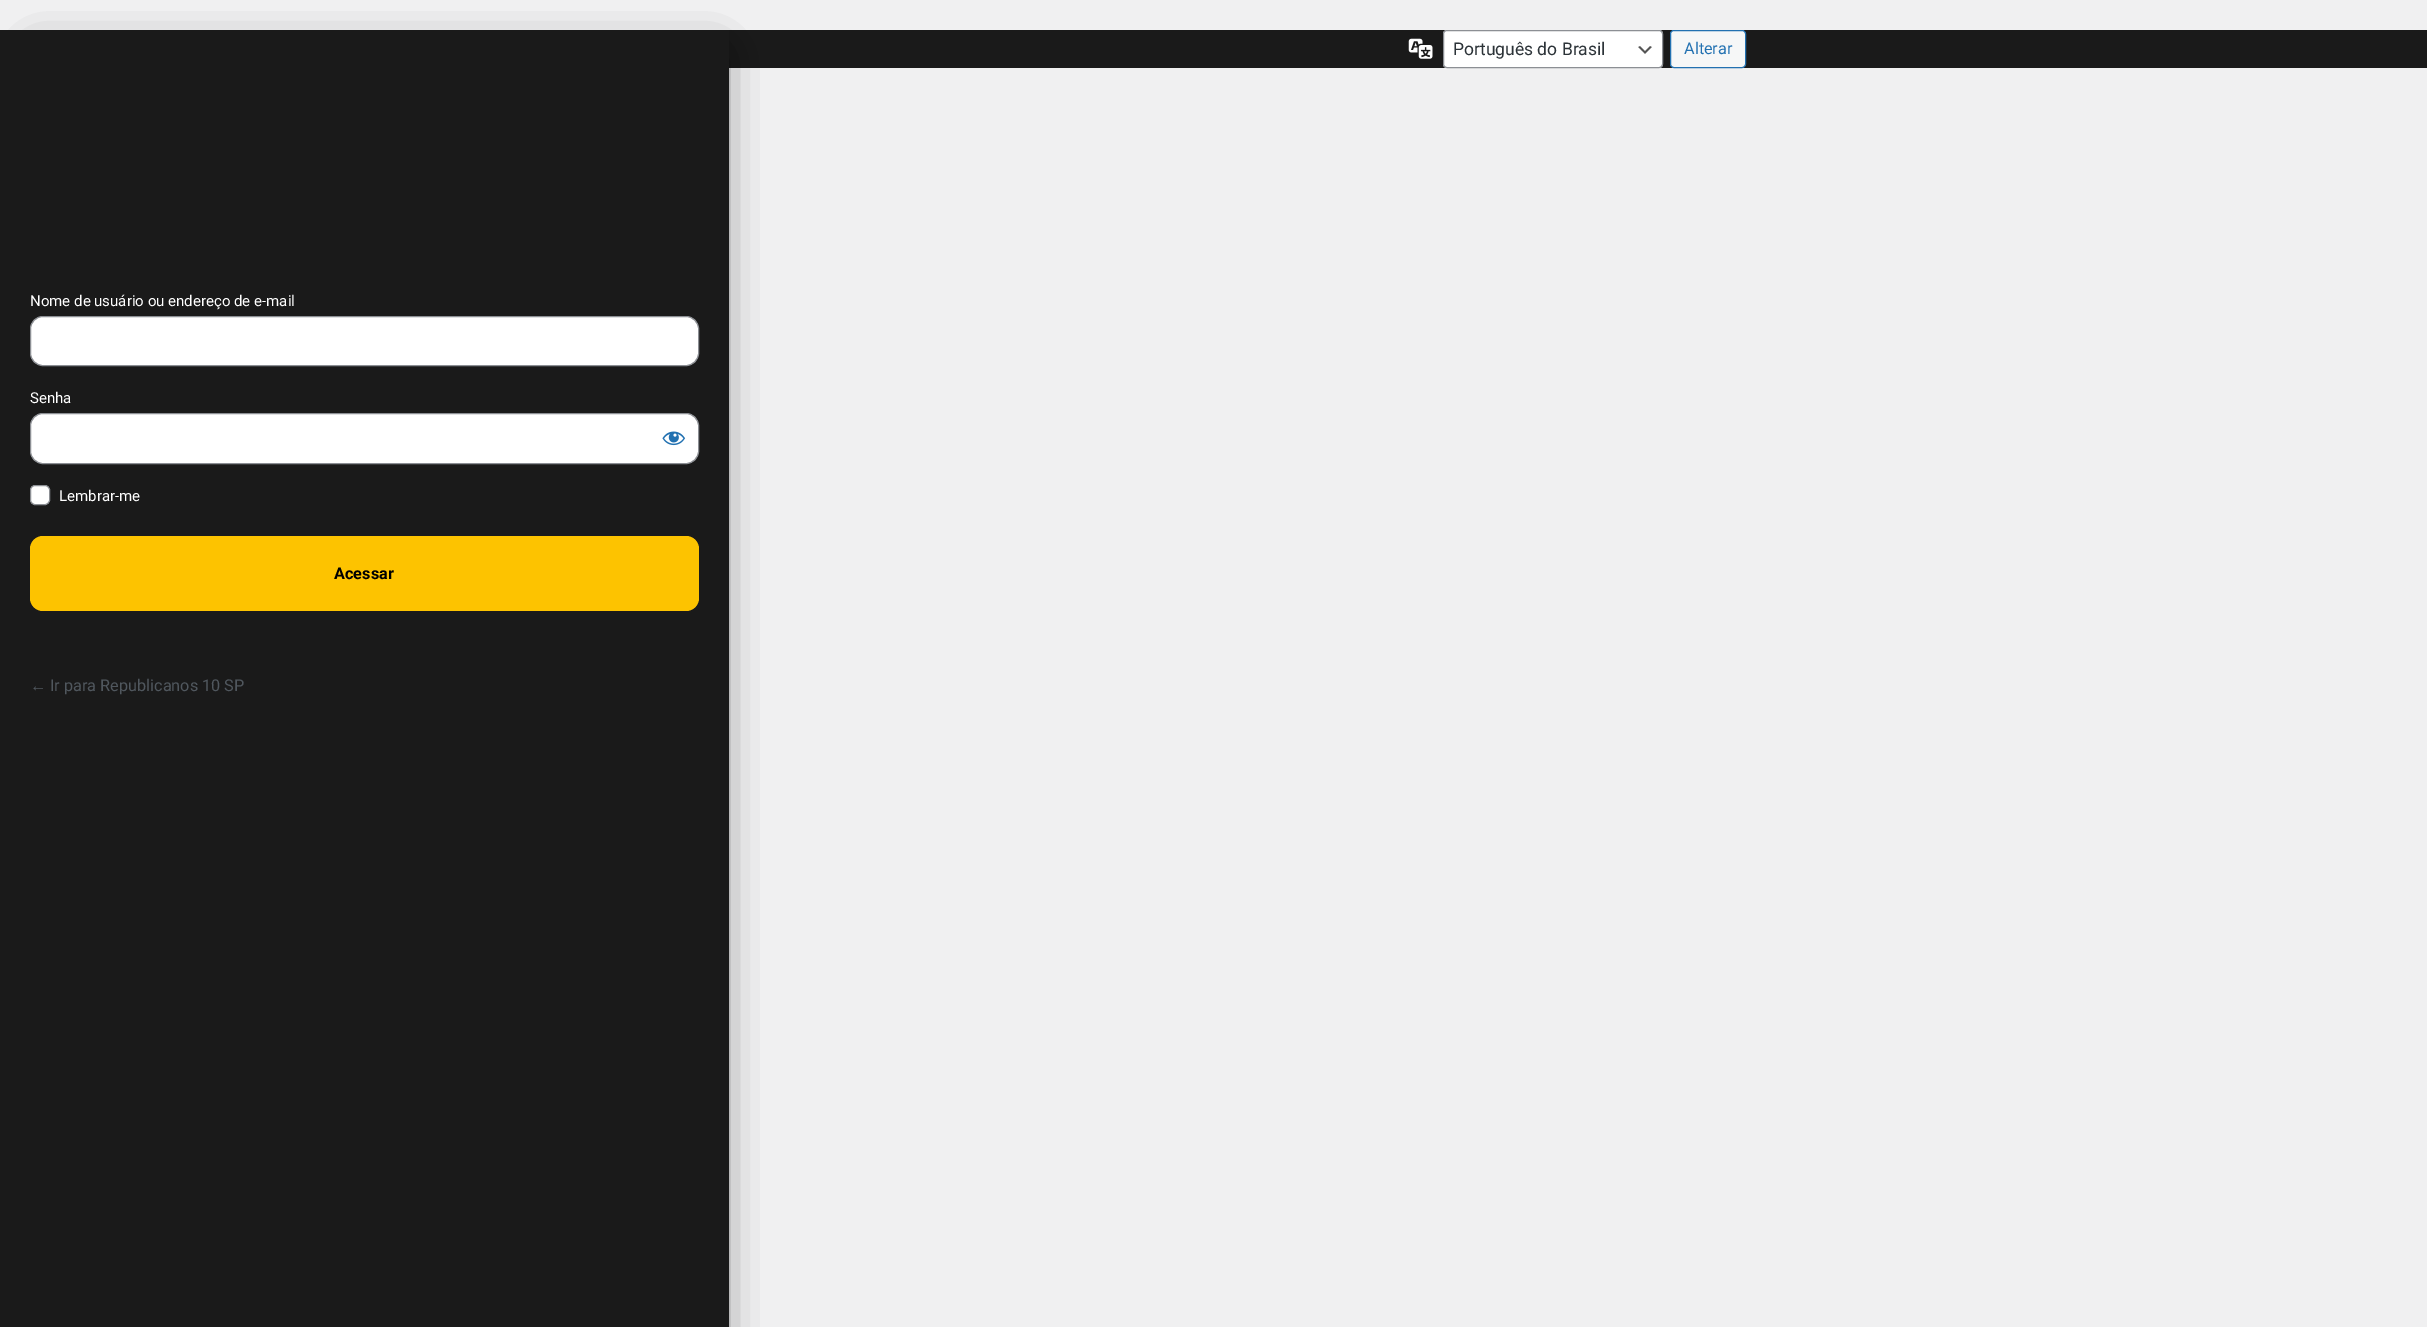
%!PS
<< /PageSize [2427 1327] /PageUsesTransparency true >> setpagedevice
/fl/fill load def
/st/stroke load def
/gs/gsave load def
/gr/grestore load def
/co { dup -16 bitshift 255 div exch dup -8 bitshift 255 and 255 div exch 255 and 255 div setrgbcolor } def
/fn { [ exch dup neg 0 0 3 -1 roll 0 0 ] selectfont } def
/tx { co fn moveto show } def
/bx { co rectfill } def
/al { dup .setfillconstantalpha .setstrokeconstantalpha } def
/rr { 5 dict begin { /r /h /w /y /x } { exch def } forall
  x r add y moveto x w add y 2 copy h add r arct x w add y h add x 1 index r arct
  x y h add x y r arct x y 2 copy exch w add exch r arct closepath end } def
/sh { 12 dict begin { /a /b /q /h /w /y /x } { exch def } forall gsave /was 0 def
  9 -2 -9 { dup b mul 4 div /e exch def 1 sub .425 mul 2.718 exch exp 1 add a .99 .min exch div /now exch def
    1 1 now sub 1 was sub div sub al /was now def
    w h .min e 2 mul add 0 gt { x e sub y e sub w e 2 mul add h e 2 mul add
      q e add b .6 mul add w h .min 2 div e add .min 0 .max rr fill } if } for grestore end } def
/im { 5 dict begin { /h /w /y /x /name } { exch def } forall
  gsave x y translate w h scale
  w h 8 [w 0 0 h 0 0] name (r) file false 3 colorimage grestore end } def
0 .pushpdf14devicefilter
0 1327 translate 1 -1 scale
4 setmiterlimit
0 0 2427 1327 16#F0F0F1 bx
729 30 1698 38 16#1A1A1A bx
(media/1.raw) 1408 38 25 21 im
16#FFFFFF co
1443 30 220 38 4 rr fl
(media/2.raw) 1638 46 14 8 im
16#8C8F94 co
1443.5 30.5 219 37 3.5 rr st
16#F6F7F7 co
1670.5 30.5 75 37 3.5 rr gs fl gr
16#2271B1 co
st
16#000000 co
38 55 678 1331 0 19.5 .75 sh
0 30 729 1297 16#1A1A1A bx
16#FFFFFF co
30.5 316.5 668 49 12.5 rr gs fl gr
16#8C8F94 co
st
16#FFFFFF co
30.5 413.5 668 50 12.5 rr gs fl gr
16#8C8F94 co
st
(media/3.raw) 662 431 24 15 im
16#FFFFFF co
30.5 485.5 19 19 4.5 rr gs fl gr
16#8C8F94 co
st
16#FDC300 co
30 536 669 75 13 rr fl
(Português do Brasil) 1453 55 /Roboto-Regular 17.5 16#2C3338 tx
(Alterar) 1684 54 /Roboto-Regular 16.25 16#2271B1 tx
(Nome de usuário ou endereço de e-mail) 30 306 /Roboto-Regular 15 16#FFFFFF tx
(Senha) 30 403 /Roboto-Regular 15 16#FFFFFF tx
(Lembrar-me) 59 501 /Roboto-Regular 15 16#FFFFFF tx
(Acessar) 334 579 /Roboto-Bold 16.25 16#000000 tx
(←) 30 691 /LiberationSans-Regular 16.25 16#50575E tx
(Ir para Republicanos 10 SP) 50 691 /Roboto-Regular 16.25 16#50575E tx
.poppdf14devicefilter showpage
